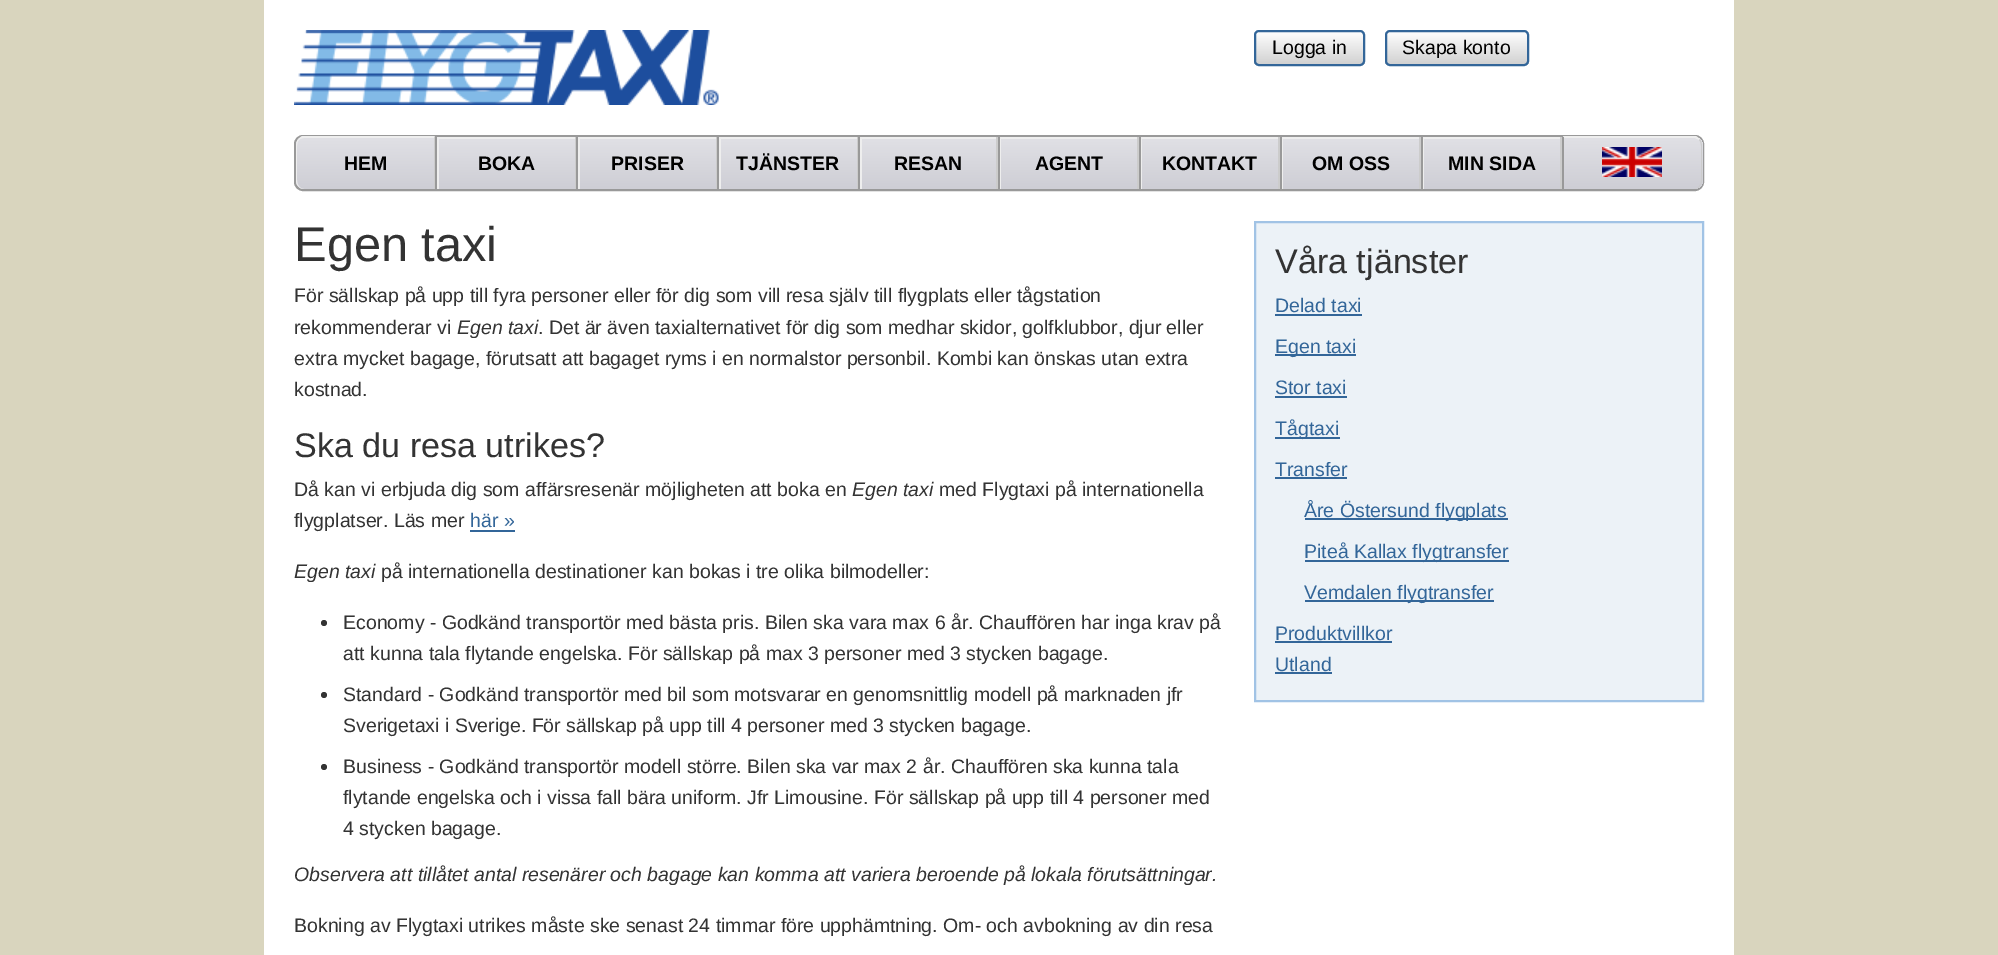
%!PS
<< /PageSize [1998 955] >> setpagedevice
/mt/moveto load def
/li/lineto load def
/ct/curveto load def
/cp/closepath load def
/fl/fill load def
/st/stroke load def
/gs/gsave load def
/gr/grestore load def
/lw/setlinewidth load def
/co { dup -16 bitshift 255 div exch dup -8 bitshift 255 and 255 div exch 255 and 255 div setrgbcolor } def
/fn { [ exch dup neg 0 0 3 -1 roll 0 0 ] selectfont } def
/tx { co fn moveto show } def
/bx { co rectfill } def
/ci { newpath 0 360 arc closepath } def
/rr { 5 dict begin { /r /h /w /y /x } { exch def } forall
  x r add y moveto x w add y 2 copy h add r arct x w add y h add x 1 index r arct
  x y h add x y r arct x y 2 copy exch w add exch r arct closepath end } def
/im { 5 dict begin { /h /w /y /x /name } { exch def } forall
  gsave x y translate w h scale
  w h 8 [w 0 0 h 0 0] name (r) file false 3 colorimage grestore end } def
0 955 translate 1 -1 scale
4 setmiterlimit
0 0 1998 955 16#D9D5BE bx
264 0 1470 955 16#FFFFFF bx
(media/1.raw) 294 30 425 75 im
gs
1254 30 111 36 5 rr clip newpath
gs 1254 32 mt 1365 32 li 1365 65 li 1254 65 li cp clip newpath
<< /ShadingType 2 /ColorSpace /DeviceRGB /Coords [1256 32 1256 65] /Extend [true true] /Function << /FunctionType 2 /Domain [0 1] /C0 [.996 .996 .996] /C1 [.816 .816 .816] /N 1 >> >> shfill gr
gr
16#336699 co
2 lw
1255 31 109 34 4 rr st
gs
1385 30 144 36 5 rr clip newpath
gs 1385 32 mt 1529 32 li 1529 65 li 1385 65 li cp clip newpath
<< /ShadingType 2 /ColorSpace /DeviceRGB /Coords [1386 32 1386 65] /Extend [true true] /Function << /FunctionType 2 /Domain [0 1] /C0 [.996 .996 .996] /C1 [.816 .816 .816] /N 1 >> >> shfill gr
gr
1386 31 142 34 4 rr st
16#999999 co
295 136 1408 54 8 rr st
gs
305 137 mt 435 137 li 435 189 li 305 189 li 300 189 296 185 296 180 ct 296 146 li 296 141 300 137 305 137 ct cp clip newpath
gs 296 138 mt 435 138 li 435 189 li 305 189 li 300 189 296 185 296 180 ct cp clip newpath
<< /ShadingType 2 /ColorSpace /DeviceRGB /Coords [297 138 297 189] /Extend [true true] /Function << /FunctionType 2 /Domain [0 1] /C0 [.878 .878 .898] /C1 [.808 .808 .835] /N 1 >> >> shfill gr
gr
16#EEEEEE co
304 138 mt 302 138 300 139 299 140 ct 298 139 li 302 136 li 435 136 li 434 138 li cp fl
16#CCCCCC co
435 136 mt 434 138 li 434 189 li 435 189 li cp fl
16#EEEEEE co
299 140 mt 298 139 li 297 141 296 144 296 146 ct 296 180 li 296 185 300 189 304 189 ct 300 189 297 185 297 180 ct 297 146 li 297 143 298 141 299 140 ct cp fl
435 137 2 54 16#999999 bx
gs 439 139 mt 575 139 li 575 189 li 439 189 li cp clip newpath
<< /ShadingType 2 /ColorSpace /DeviceRGB /Coords [438 138 438 189] /Extend [true true] /Function << /FunctionType 2 /Domain [0 1] /C0 [.878 .878 .898] /C1 [.808 .808 .835] /N 1 >> >> shfill gr
437 137 139 2 16#EEEEEE bx
575 137 1 52 16#CCCCCC bx
437 137 2 52 16#EEEEEE bx
576 137 2 54 16#999999 bx
gs 580 139 mt 716 139 li 716 189 li 580 189 li cp clip newpath
<< /ShadingType 2 /ColorSpace /DeviceRGB /Coords [579 138 579 189] /Extend [true true] /Function << /FunctionType 2 /Domain [0 1] /C0 [.878 .878 .898] /C1 [.808 .808 .835] /N 1 >> >> shfill gr
578 137 139 2 16#EEEEEE bx
716 137 1 52 16#CCCCCC bx
578 137 2 52 16#EEEEEE bx
717 137 2 54 16#999999 bx
gs 721 139 mt 857 139 li 857 189 li 721 189 li cp clip newpath
<< /ShadingType 2 /ColorSpace /DeviceRGB /Coords [720 138 720 189] /Extend [true true] /Function << /FunctionType 2 /Domain [0 1] /C0 [.878 .878 .898] /C1 [.808 .808 .835] /N 1 >> >> shfill gr
719 137 139 2 16#EEEEEE bx
857 137 1 52 16#CCCCCC bx
719 137 2 52 16#EEEEEE bx
858 137 2 54 16#999999 bx
gs 862 139 mt 996 139 li 996 189 li 862 189 li cp clip newpath
<< /ShadingType 2 /ColorSpace /DeviceRGB /Coords [861 138 861 189] /Extend [true true] /Function << /FunctionType 2 /Domain [0 1] /C0 [.878 .878 .898] /C1 [.808 .808 .835] /N 1 >> >> shfill gr
860 137 138 2 16#EEEEEE bx
996 137 2 52 16#CCCCCC bx
860 137 2 52 16#EEEEEE bx
999 137 140 2 16#EEEEEE bx
998 137 2 54 16#999999 bx
gs 1001 139 mt 1137 139 li 1137 189 li 1001 189 li cp clip newpath
<< /ShadingType 2 /ColorSpace /DeviceRGB /Coords [1001 138 1001 189] /Extend [true true] /Function << /FunctionType 2 /Domain [0 1] /C0 [.878 .878 .898] /C1 [.808 .808 .835] /N 1 >> >> shfill gr
1137 137 2 52 16#CCCCCC bx
1000 137 1 52 16#EEEEEE bx
1140 137 140 2 16#EEEEEE bx
1139 137 2 54 16#999999 bx
gs 1142 139 mt 1278 139 li 1278 189 li 1142 189 li cp clip newpath
<< /ShadingType 2 /ColorSpace /DeviceRGB /Coords [1142 138 1142 189] /Extend [true true] /Function << /FunctionType 2 /Domain [0 1] /C0 [.878 .878 .898] /C1 [.808 .808 .835] /N 1 >> >> shfill gr
1278 137 2 52 16#CCCCCC bx
1141 137 1 52 16#EEEEEE bx
1281 137 140 2 16#EEEEEE bx
1280 137 2 54 16#999999 bx
gs 1283 139 mt 1419 139 li 1419 189 li 1283 189 li cp clip newpath
<< /ShadingType 2 /ColorSpace /DeviceRGB /Coords [1283 138 1283 189] /Extend [true true] /Function << /FunctionType 2 /Domain [0 1] /C0 [.878 .878 .898] /C1 [.808 .808 .835] /N 1 >> >> shfill gr
1419 137 2 52 16#CCCCCC bx
1282 137 1 52 16#EEEEEE bx
1422 137 140 2 16#EEEEEE bx
1421 137 2 54 16#999999 bx
gs 1424 139 mt 1560 139 li 1560 189 li 1424 189 li cp clip newpath
<< /ShadingType 2 /ColorSpace /DeviceRGB /Coords [1424 138 1424 189] /Extend [true true] /Function << /FunctionType 2 /Domain [0 1] /C0 [.878 .878 .898] /C1 [.808 .808 .835] /N 1 >> >> shfill gr
1560 137 2 52 16#CCCCCC bx
1423 137 1 52 16#EEEEEE bx
gs
1563 137 mt 1694 137 li 1699 137 1703 141 1703 146 ct 1703 180 li 1703 185 1699 189 1694 189 ct 1563 189 li cp clip newpath
gs 1563 138 mt 1703 138 li 1703 180 li 1703 185 1699 189 1694 189 ct 1563 189 li cp clip newpath
<< /ShadingType 2 /ColorSpace /DeviceRGB /Coords [1565 138 1565 189] /Extend [true true] /Function << /FunctionType 2 /Domain [0 1] /C0 [.878 .878 .898] /C1 [.808 .808 .835] /N 1 >> >> shfill gr
gr
1563 136 mt 1696 136 li 1700 139 li 1699 140 li 1695 138 li 1564 138 li cp fl
1562 137 2 54 16#999999 bx
16#CCCCCC co
1700 139 mt 1699 140 li 1700 141 1701 143 1701 146 ct 1701 180 li 1701 185 1698 189 1694 189 ct 1698 189 1702 185 1702 180 ct 1702 146 li 1702 144 1701 141 1700 139 ct cp fl
(media/2.raw) 1602 147 60 30 im
470 530 45 2 16#336699 bx
16#333333 co
324 623 3 ci fl
324 695 3 ci fl
324 767 3 ci fl
16#ECF2F7 co
1255 222 mt 1703 222 li 1703 701 li 1255 701 li cp gs fl gr
16#A1C3E5 co
st
1275 314 87 2 16#336699 bx
1275 354 81 2 16#336699 bx
1275 396 72 2 16#336699 bx
1275 437 65 2 16#336699 bx
1275 477 72 2 16#336699 bx
1305 518 203 2 16#336699 bx
1305 560 204 2 16#336699 bx
1305 600 189 2 16#336699 bx
1275 641 117 2 16#336699 bx
1275 672 57 2 16#336699 bx
(Logga in) 1272 54 /LiberationSans-Regular 19.5 16#000000 tx
(Skapa konto) 1402 54 /LiberationSans-Regular 19.5 16#000000 tx
(HEM) 344 170 /LiberationSans-Bold 19.5 16#000000 tx
(BOKA) 478 170 /LiberationSans-Bold 19.5 16#000000 tx
(PRISER) 611 170 /LiberationSans-Bold 19.5 16#000000 tx
(TJÄNSTER) 736 170 /LiberationSans-Bold 19.5 16#000000 tx
(RESAN) 894 170 /LiberationSans-Bold 19.5 16#000000 tx
(AGENT) 1035 170 /LiberationSans-Bold 19.5 16#000000 tx
(KONTAKT) 1162 170 /LiberationSans-Bold 19.5 16#000000 tx
(OM OSS) 1312 170 /LiberationSans-Bold 19.5 16#000000 tx
(MIN SIDA) 1448 170 /LiberationSans-Bold 19.5 16#000000 tx
(Egen taxi) 294 261 /LiberationSans-Regular 48.75 16#333333 tx
(För sällskap på upp till fyra personer eller för dig som vill resa själv till flygplats eller tågstation) 294 302 /LiberationSans-Regular 19.5 16#333333 tx
(rekommenderar vi) 294 334 /LiberationSans-Regular 19.5 16#333333 tx
(Egen taxi) 457 334 /LiberationSans-Italic 19.5 16#333333 tx
(. Det är även taxialternativet för dig som medhar skidor, golfklubbor, djur eller) 538 334 /LiberationSans-Regular 19.5 16#333333 tx
(extra mycket bagage, förutsatt att bagaget ryms i en normalstor personbil. Kombi kan önskas utan extra) 294 365 /LiberationSans-Regular 19.5 16#333333 tx
(kostnad.) 294 396 /LiberationSans-Regular 19.5 16#333333 tx
(Ska du resa utrikes?) 294 457 /LiberationSans-Regular 34.1 16#333333 tx
(Då kan vi erbjuda dig som affärsresenär möjligheten att boka en) 294 496 /LiberationSans-Regular 19.5 16#333333 tx
(Egen taxi) 852 496 /LiberationSans-Italic 19.5 16#333333 tx
(med Flygtaxi på internationella) 939 496 /LiberationSans-Regular 19.5 16#333333 tx
(flygplatser. Läs mer) 294 527 /LiberationSans-Regular 19.5 16#333333 tx
(här ») 470 527 /LiberationSans-Regular 19.5 16#336699 tx
(Egen taxi) 294 578 /LiberationSans-Italic 19.5 16#333333 tx
(på internationella destinationer kan bokas i tre olika bilmodeller:) 381 578 /LiberationSans-Regular 19.5 16#333333 tx
(Economy - Godkänd transportör med bästa pris. Bilen ska vara max 6 år. Chauffören har inga krav på) 343 629 /LiberationSans-Regular 19.5 16#333333 tx
(att kunna tala flytande engelska. För sällskap på max 3 personer med 3 stycken bagage.) 343 660 /LiberationSans-Regular 19.5 16#333333 tx
(Standard - Godkänd transportör med bil som motsvarar en genomsnittlig modell på marknaden jfr) 343 701 /LiberationSans-Regular 19.5 16#333333 tx
(Sverigetaxi i Sverige. För sällskap på upp till 4 personer med 3 stycken bagage.) 343 732 /LiberationSans-Regular 19.5 16#333333 tx
(Business - Godkänd transportör modell större. Bilen ska var max 2 år. Chauffören ska kunna tala) 343 773 /LiberationSans-Regular 19.5 16#333333 tx
(flytande engelska och i vissa fall bära uniform. Jfr Limousine. För sällskap på upp till 4 personer med) 343 804 /LiberationSans-Regular 19.5 16#333333 tx
(4 stycken bagage.) 343 835 /LiberationSans-Regular 19.5 16#333333 tx
(Observera att tillåtet antal resenärer och bagage kan komma att variera beroende på lokala förutsättningar.) 294 881 /LiberationSans-Italic 19.5 16#333333 tx
(Bokning av Flygtaxi utrikes måste ske senast 24 timmar före upphämtning. Om- och avbokning av din resa) 294 932 /LiberationSans-Regular 19.5 16#333333 tx
(Våra tjänster) 1275 273 /LiberationSans-Regular 34.1 16#333333 tx
(Delad taxi) 1275 312 /LiberationSans-Regular 19.5 16#336699 tx
(Egen taxi) 1275 353 /LiberationSans-Regular 19.5 16#336699 tx
(Stor taxi) 1275 394 /LiberationSans-Regular 19.5 16#336699 tx
(Tågtaxi) 1275 435 /LiberationSans-Regular 19.5 16#336699 tx
(Transfer) 1275 476 /LiberationSans-Regular 19.5 16#336699 tx
(Åre Östersund flygplats) 1304 517 /LiberationSans-Regular 19.5 16#336699 tx
(Piteå Kallax flygtransfer) 1304 558 /LiberationSans-Regular 19.5 16#336699 tx
(Vemdalen flygtransfer) 1304 599 /LiberationSans-Regular 19.5 16#336699 tx
(Produktvillkor) 1275 640 /LiberationSans-Regular 19.5 16#336699 tx
(Utland) 1275 671 /LiberationSans-Regular 19.5 16#336699 tx
showpage
